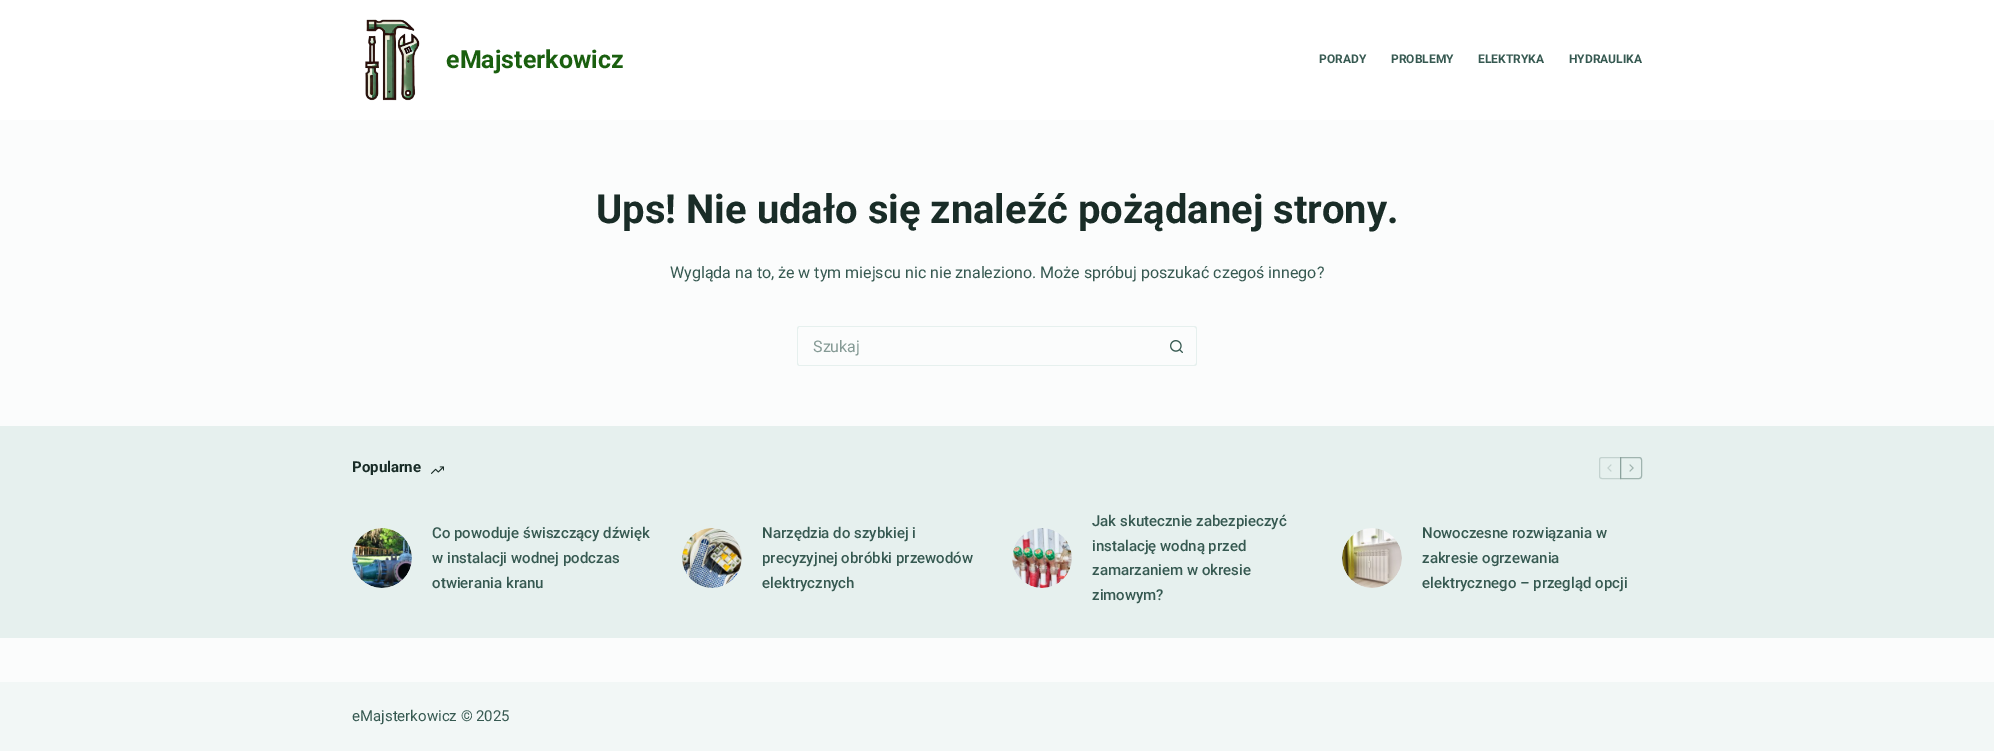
%!PS
<< /PageSize [1994 751] /PageUsesTransparency true >> setpagedevice
/mt/moveto load def
/li/lineto load def
/ct/curveto load def
/cp/closepath load def
/st/stroke load def
/co { dup -16 bitshift 255 div exch dup -8 bitshift 255 and 255 div exch 255 and 255 div setrgbcolor } def
/fn { [ exch dup neg 0 0 3 -1 roll 0 0 ] selectfont } def
/tx { co fn moveto show } def
/bx { co rectfill } def
/al { dup .setfillconstantalpha .setstrokeconstantalpha } def
/im { 5 dict begin { /h /w /y /x /name } { exch def } forall
  gsave x y translate w h scale
  w h 8 [w 0 0 h 0 0] name (r) file false 3 colorimage grestore end } def
0 .pushpdf14devicefilter
0 751 translate 1 -1 scale
4 setmiterlimit
0 0 1994 751 16#FBFCFC bx
0 0 1994 120 16#FFFFFF bx
(media/1.raw) 365 19 55 82 im
16#E6F0EE co
800 326 mt 1157 326 li 1157 366 li 800 366 li 798 366 797 365 797 363 ct 797 329 li 797 327 798 326 800 326 ct cp 800 327 mt 1157 327 li 1157 365 li 799 365 li 797 363 798 358 798 357 ct 798 329 li 799 327 li cp eofill
1157 326 mt 1194 326 li 1196 326 1197 327 1197 329 ct 1197 363 li 1197 365 1196 366 1194 366 ct 1157 366 li cp 1157 327 mt 1194 327 li 1195 327 1196 328 1196 329 ct 1196 363 li 1196 364 1195 365 1194 365 ct 1157 365 li cp eofill
(media/2.raw) 1170 340 13 13 im
0 426 1994 212 16#E6F0EE bx
(media/3.raw) 431 466 13 8 im
16#C3D2CF co
1602 457.5 mt 1620.5 457.5 li 1620.5 478.5 li 1602 478.5 li 1600.5 478.5 1599.5 477.5 1599.5 476 ct 1599.5 460 li 1599.5 458.5 1600.5 457.5 1602 457.5 ct cp st
(media/4.raw) 1607 464 5 8 im
0.4 al
16#365951 co
1620.5 457.5 mt 1639 457.5 li 1640.5 457.5 1641.5 458.5 1641.5 460 ct 1641.5 476 li 1641.5 477.5 1640.5 478.5 1639 478.5 ct 1620.5 478.5 li cp st
1 al
(media/5.raw) 1629 464 5 8 im
(media/6.raw) 352 528 60 60 im
(media/7.raw) 682 528 60 60 im
(media/8.raw) 1012 528 60 60 im
(media/9.raw) 1342 528 60 60 im
0 682 1994 69 16#F2F7F6 bx
(eMajsterkowicz) 446 68 /Roboto-Bold 25 16#1A5F0F tx
(PORADY) 1319 63 /Roboto-Bold 12 16#365951 tx
(PROBLEMY) 1391 63 /Roboto-Bold 12 16#365951 tx
(ELEKTRYKA) 1478 63 /Roboto-Bold 12 16#365951 tx
(HYDRAULIKA) 1569 63 /Roboto-Bold 12 16#365951 tx
(Ups! Nie udało się znaleźć pożądanej strony.) 596 223 /Roboto-Bold 40 16#192C27 tx
(Wygląda na to, że w tym miejscu nic nie znaleziono. Może spróbuj poszukać czegoś innego?) 670 278 /Roboto-Regular 16 16#365951 tx
(Szukaj) 813 352 /Roboto-Regular 16 16#859A95 tx
(Popularne) 352 472 /Roboto-Bold 15 16#192C27 tx
(Co powoduje świszczący dźwięk) 432 538 /Roboto-Medium 15 16#365951 tx
(w instalacji wodnej podczas) 432 563 /Roboto-Medium 15 16#365951 tx
(otwierania kranu) 432 588 /Roboto-Medium 15 16#365951 tx
(Narzędzia do szybkiej i) 762 538 /Roboto-Medium 15 16#365951 tx
(precyzyjnej obróbki przewodów) 762 563 /Roboto-Medium 15 16#365951 tx
(elektrycznych) 762 588 /Roboto-Medium 15 16#365951 tx
(Jak skutecznie zabezpieczyć) 1092 526 /Roboto-Medium 15 16#365951 tx
(instalację wodną przed) 1092 551 /Roboto-Medium 15 16#365951 tx
(zamarzaniem w okresie) 1092 575 /Roboto-Medium 15 16#365951 tx
(zimowym?) 1092 600 /Roboto-Medium 15 16#365951 tx
(Nowoczesne rozwiązania w) 1422 538 /Roboto-Medium 15 16#365951 tx
(zakresie ogrzewania) 1422 563 /Roboto-Medium 15 16#365951 tx
(elektrycznego – przegląd opcji) 1422 588 /Roboto-Medium 15 16#365951 tx
(eMajsterkowicz © 2025) 352 721 /Roboto-Regular 15 16#365951 tx
.poppdf14devicefilter showpage
